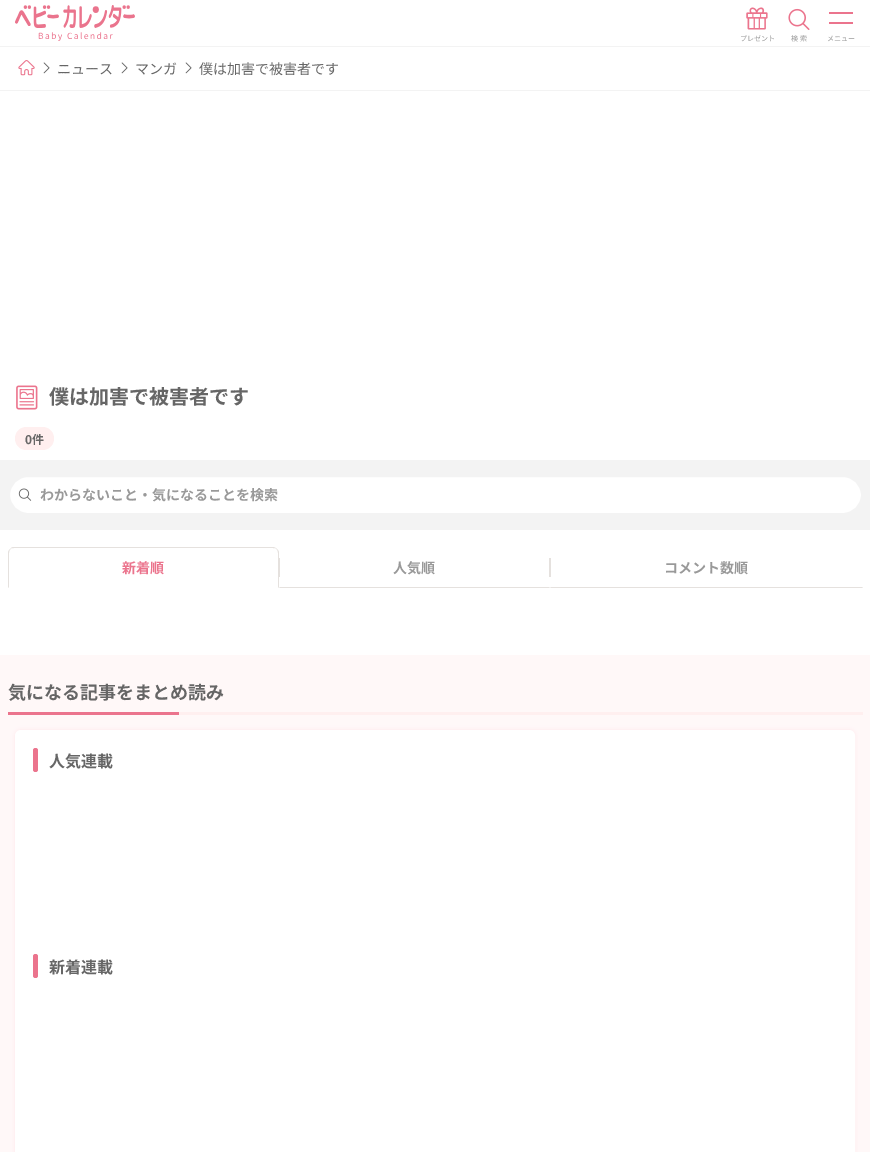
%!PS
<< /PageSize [870 1152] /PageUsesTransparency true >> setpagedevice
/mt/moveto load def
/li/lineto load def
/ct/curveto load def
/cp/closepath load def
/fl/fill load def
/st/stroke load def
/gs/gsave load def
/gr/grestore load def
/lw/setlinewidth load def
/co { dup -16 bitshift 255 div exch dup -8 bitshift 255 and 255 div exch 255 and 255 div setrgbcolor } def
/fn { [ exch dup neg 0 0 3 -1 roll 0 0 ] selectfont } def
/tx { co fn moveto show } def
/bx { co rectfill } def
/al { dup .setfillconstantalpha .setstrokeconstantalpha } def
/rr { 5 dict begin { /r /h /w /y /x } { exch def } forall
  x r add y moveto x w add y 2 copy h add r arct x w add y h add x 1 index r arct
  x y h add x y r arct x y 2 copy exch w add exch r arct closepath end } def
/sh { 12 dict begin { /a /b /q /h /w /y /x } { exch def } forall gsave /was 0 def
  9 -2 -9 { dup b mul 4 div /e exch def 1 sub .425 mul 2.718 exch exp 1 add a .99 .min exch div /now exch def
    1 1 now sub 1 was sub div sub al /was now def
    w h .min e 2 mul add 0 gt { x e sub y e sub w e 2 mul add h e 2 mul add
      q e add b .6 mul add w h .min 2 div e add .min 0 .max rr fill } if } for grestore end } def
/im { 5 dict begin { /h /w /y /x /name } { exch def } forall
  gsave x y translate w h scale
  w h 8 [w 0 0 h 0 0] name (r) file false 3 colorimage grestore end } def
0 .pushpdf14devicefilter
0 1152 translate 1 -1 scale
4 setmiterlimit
0 0 870 1152 16#FFFFFF bx
0 46 870 1 16#F3F3F3 bx
(media/1.raw) 15 5 120 36 im
(media/2.raw) 746 7 22 23 im
(media/3.raw) 788 8 22 22 im
829 12 24 2 16#EB748D bx
829 22 24 2 16#EB748D bx
0 90 870 1 16#F3F3F3 bx
(media/4.raw) 18 60 17 16 im
(media/5.raw) 43 62 7 12 im
(media/5.raw) 121 62 7 12 im
(media/5.raw) 185 62 7 12 im
(media/6.raw) 16 385 22 25 im
16#FFEFEF co
15 427 39 23 11.5 rr fl
0 460 870 70 16#F3F3F3 bx
16#FFFFFF co
9 476 853 38 19 rr gs fl gr
16#F3F3F3 co
2 lw
st
(media/7.raw) 18 488 14 13 im
16#E5E1DE co
14 547 mt 12 547 11 548 10 549 ct 11 548 12 548 14 548 ct 273 548 li 274 548 276 548 277 549 ct 276 548 274 547 273 547 ct cp fl
279 588 mt 279 553 li 279 551.5 278 550 277 549 ct 276.5 549.5 li 277.5 550 278 551.5 278 553 ct 278 587 li cp fl
8 588 mt 9 587 li 9 553 li 9 551.5 9.5 550 10.5 549.5 ct 10 549 li 9 550 8 551.5 8 553 ct cp fl
550 588 mt 549 587 li 280 587 li 279 588 li cp fl
279 558 1 19 16#E5E1DE bx
863 588 mt 862 587 li 551 587 li 550 588 li cp fl
549 558 2 19 16#E5E1DE bx
0 655 870 497 16#FFF8F8 bx
179 712 684 3 16#FFEFEF bx
8 712 171 3 16#EB748D bx
16#EB788C co
15 730 840 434 6 2 .15 sh
16#FFFFFF co
16 731 838 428 5 rr gs fl gr
st
16#EB748D co
33 748 5 24 2.5 rr fl
33 954 5 24 2.5 rr fl
(プレゼント) 740 41 /NotoSansJP-Regular 7 16#999999 tx
(検 索) 791 41 /NotoSansJP-Regular 7 16#999999 tx
(メニュー) 827 41 /NotoSansJP-Regular 7 16#999999 tx
(ニュース) 57 74 /NotoSansJP-Regular 14 16#666666 tx
(マンガ) 135 74 /NotoSansJP-Regular 14 16#666666 tx
(僕は加害で被害者です) 199 74 /NotoSansJP-Regular 14 16#666666 tx
(僕は加害で被害者です) 49 404 /NotoSansJP-Bold 20 16#666666 tx
(0件) 25 444 /NotoSansJP-Bold 12 16#666666 tx
(わからないこと・気になることを検索) 40 500 /NotoSansJP-Bold 14 16#999999 tx
(新着順) 122 573 /NotoSansJP-Bold 14 16#EB748D tx
(人気順) 393 573 /NotoSansJP-Bold 14 16#999999 tx
(コメント数順) 664 573 /NotoSansJP-Bold 14 16#999999 tx
(気になる記事をまとめ読み) 8 699 /NotoSansJP-Bold 18 16#666666 tx
(人気連載) 49 767 /NotoSansJP-Bold 16 16#666666 tx
(新着連載) 49 973 /NotoSansJP-Bold 16 16#666666 tx
.poppdf14devicefilter showpage
